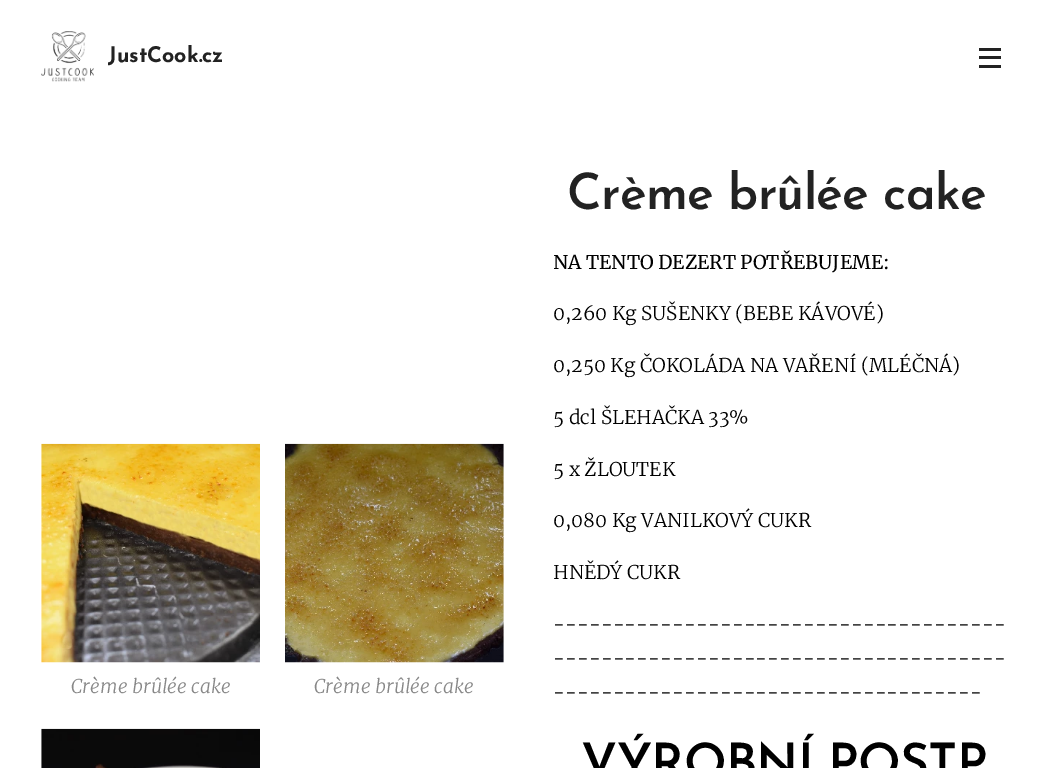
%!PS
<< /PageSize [1056 768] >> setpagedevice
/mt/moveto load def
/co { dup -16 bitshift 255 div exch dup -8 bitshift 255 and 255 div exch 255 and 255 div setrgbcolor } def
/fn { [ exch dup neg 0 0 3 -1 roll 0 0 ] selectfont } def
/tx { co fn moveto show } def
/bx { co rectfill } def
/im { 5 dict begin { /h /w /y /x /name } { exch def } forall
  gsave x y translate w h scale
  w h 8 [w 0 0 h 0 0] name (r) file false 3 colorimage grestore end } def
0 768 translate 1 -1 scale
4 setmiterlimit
0 0 1056 768 16#FFFFFF bx
(media/1.raw) 41 31 53 51 im
979 56 22 3 16#222222 bx
979 48 22 3 16#222222 bx
979 65 22 3 16#222222 bx
(media/2.raw) 41 443 219 220 im
(media/3.raw) 285 443 219 220 im
(media/4.raw) 41 728 219 40 im
(JustCook.cz) 108 62 /JosefinSans-Bold 21.5 16#222222 tx
(Crème brûlée cake) 71 693 /Merriweather-LightItalic 19 16#888888 tx
(Crème brûlée cake) 314 693 /Merriweather-LightItalic 19 16#888888 tx
/JosefinSans-SemiBold 50 fn
16#222222 co
567 209 mt -.75 0 (Crème brûlée cake) ashow
(NA TENTO DEZERT POTŘEBUJEME:) 553 269 /Merriweather-Regular 19 16#000000 tx
(0,260 Kg SUŠENKY \(BEBE KÁVOVÉ\)) 553 320 /Merriweather-Light 19 16#000000 tx
(0,250 Kg ČOKOLÁDA NA VAŘENÍ \(MLÉČNÁ\)) 553 372 /Merriweather-Light 19 16#000000 tx
(5 dcl ŠLEHAČKA 33%) 553 424 /Merriweather-Light 19 16#000000 tx
(5 x ŽLOUTEK) 553 476 /Merriweather-Light 19 16#000000 tx
(0,080 Kg VANILKOVÝ CUKR) 553 527 /Merriweather-Light 19 16#000000 tx
(HNĚDÝ CUKR) 553 579 /Merriweather-Light 19 16#000000 tx
(--------------------------------------) 553 631 /Merriweather-Light 19 16#000000 tx
(--------------------------------------) 553 665 /Merriweather-Light 19 16#000000 tx
(------------------------------------) 553 699 /Merriweather-Light 19 16#000000 tx
/JosefinSans-SemiBold 50 fn
581 779 mt -.75 0 (VÝROBNÍ POSTP) ashow
showpage
